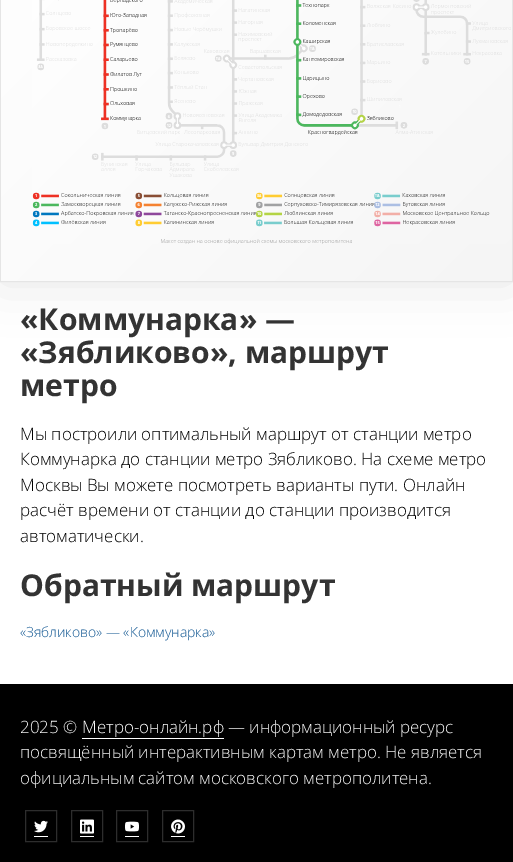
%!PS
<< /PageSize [513 862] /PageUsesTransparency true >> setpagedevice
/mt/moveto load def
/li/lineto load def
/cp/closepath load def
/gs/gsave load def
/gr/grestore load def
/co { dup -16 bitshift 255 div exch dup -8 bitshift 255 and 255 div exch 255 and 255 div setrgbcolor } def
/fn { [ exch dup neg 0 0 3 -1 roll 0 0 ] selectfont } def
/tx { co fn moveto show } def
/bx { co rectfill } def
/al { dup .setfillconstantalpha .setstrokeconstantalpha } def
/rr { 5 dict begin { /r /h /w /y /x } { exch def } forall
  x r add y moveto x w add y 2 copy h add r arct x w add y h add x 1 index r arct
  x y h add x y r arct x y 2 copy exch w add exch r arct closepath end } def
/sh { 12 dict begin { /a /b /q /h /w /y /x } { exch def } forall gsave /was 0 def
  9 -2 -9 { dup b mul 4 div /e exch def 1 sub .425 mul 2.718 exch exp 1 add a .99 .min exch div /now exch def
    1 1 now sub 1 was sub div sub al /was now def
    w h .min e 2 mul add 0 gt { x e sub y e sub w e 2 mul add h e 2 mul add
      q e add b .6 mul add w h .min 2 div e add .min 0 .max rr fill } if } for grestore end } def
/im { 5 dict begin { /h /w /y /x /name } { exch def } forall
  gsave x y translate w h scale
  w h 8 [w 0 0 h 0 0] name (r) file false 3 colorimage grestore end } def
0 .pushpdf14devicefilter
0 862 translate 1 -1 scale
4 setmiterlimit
0 0 513 862 16#FFFFFF bx
16#808080 co
0 -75 513 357 0 25 .2 sh
16#E5E5E5 co
.5 -.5 512 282 rectstroke
gs 1 0 mt 512 0 li 512 281 li 1 281 li cp clip newpath
<< /ShadingType 2 /ColorSpace /DeviceRGB /Coords [-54 -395 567 226] /Extend [true true] /Function << /FunctionType 3 /Domain [0 1] /Functions [<< /FunctionType 2 /Domain [0 1] /C0 [1 1 1] /C1 [1 1 1] /N 1 >> << /FunctionType 2 /Domain [0 1] /C0 [1 1 1] /C1 [.961 .961 .961] /N 1 >>] /Bounds [.3] /Encode [0 1 0 1] >> >> shfill gr
(media/1.raw) 32 0 479 244 im
0 684 513 178 16#000000 bx
82 738 142 1 16#FFFFFF bx
16#2D2D2D co
25.5 810.5 31 31 rectstroke
34 836 14 1 16#FFFFFF bx
(media/2.raw) 34 820 14 13 im
16#2D2D2D co
71.5 810.5 31 31 rectstroke
80 836 14 1 16#FFFFFF bx
(media/3.raw) 80 819 14 15 im
16#2D2D2D co
116.5 810.5 31 31 rectstroke
125 836 14 1 16#FFFFFF bx
(media/4.raw) 125 821 14 11 im
16#2D2D2D co
162.5 810.5 31 31 rectstroke
171 836 14 1 16#FFFFFF bx
(media/5.raw) 171 819 14 15 im
(«Коммунарка» —) 20 330 /OpenSans-Bold 30 16#333333 tx
(«Зябликово», маршрут) 20 363 /OpenSans-Bold 30 16#333333 tx
(метро) 20 396 /OpenSans-Bold 30 16#333333 tx
(Мы построили оптимальный маршрут от станции метро) 20 440 /OpenSans-Light 17 16#000000 tx
(Коммунарка до станции метро Зябликово. На схеме метро) 20 465 /OpenSans-Light 17 16#000000 tx
(Москвы Вы можете посмотреть варианты пути. Онлайн) 20 491 /OpenSans-Light 17 16#000000 tx
(расчёт времени от станции до станции производится) 20 516 /OpenSans-Light 17 16#000000 tx
(автоматически.) 20 542 /OpenSans-Light 17 16#000000 tx
(Обратный маршрут) 20 596 /OpenSans-Bold 30 16#333333 tx
(«Зябликово» — «Коммунарка») 20 637 /OpenSans-Light 14 16#135893 tx
(2025 ©) 20 733 /OpenSans-Light 17 16#F5F5F5 tx
(Метро-онлайн.рф) 82 733 /OpenSans-Light 17 16#FFFFFF tx
(— информационный ресурс) 228 733 /OpenSans-Light 17 16#F5F5F5 tx
(посвящённый интерактивным картам метро. Не является) 20 758 /OpenSans-Light 17 16#F5F5F5 tx
(официальным сайтом московского метрополитена.) 20 784 /OpenSans-Light 17 16#F5F5F5 tx
.poppdf14devicefilter showpage
